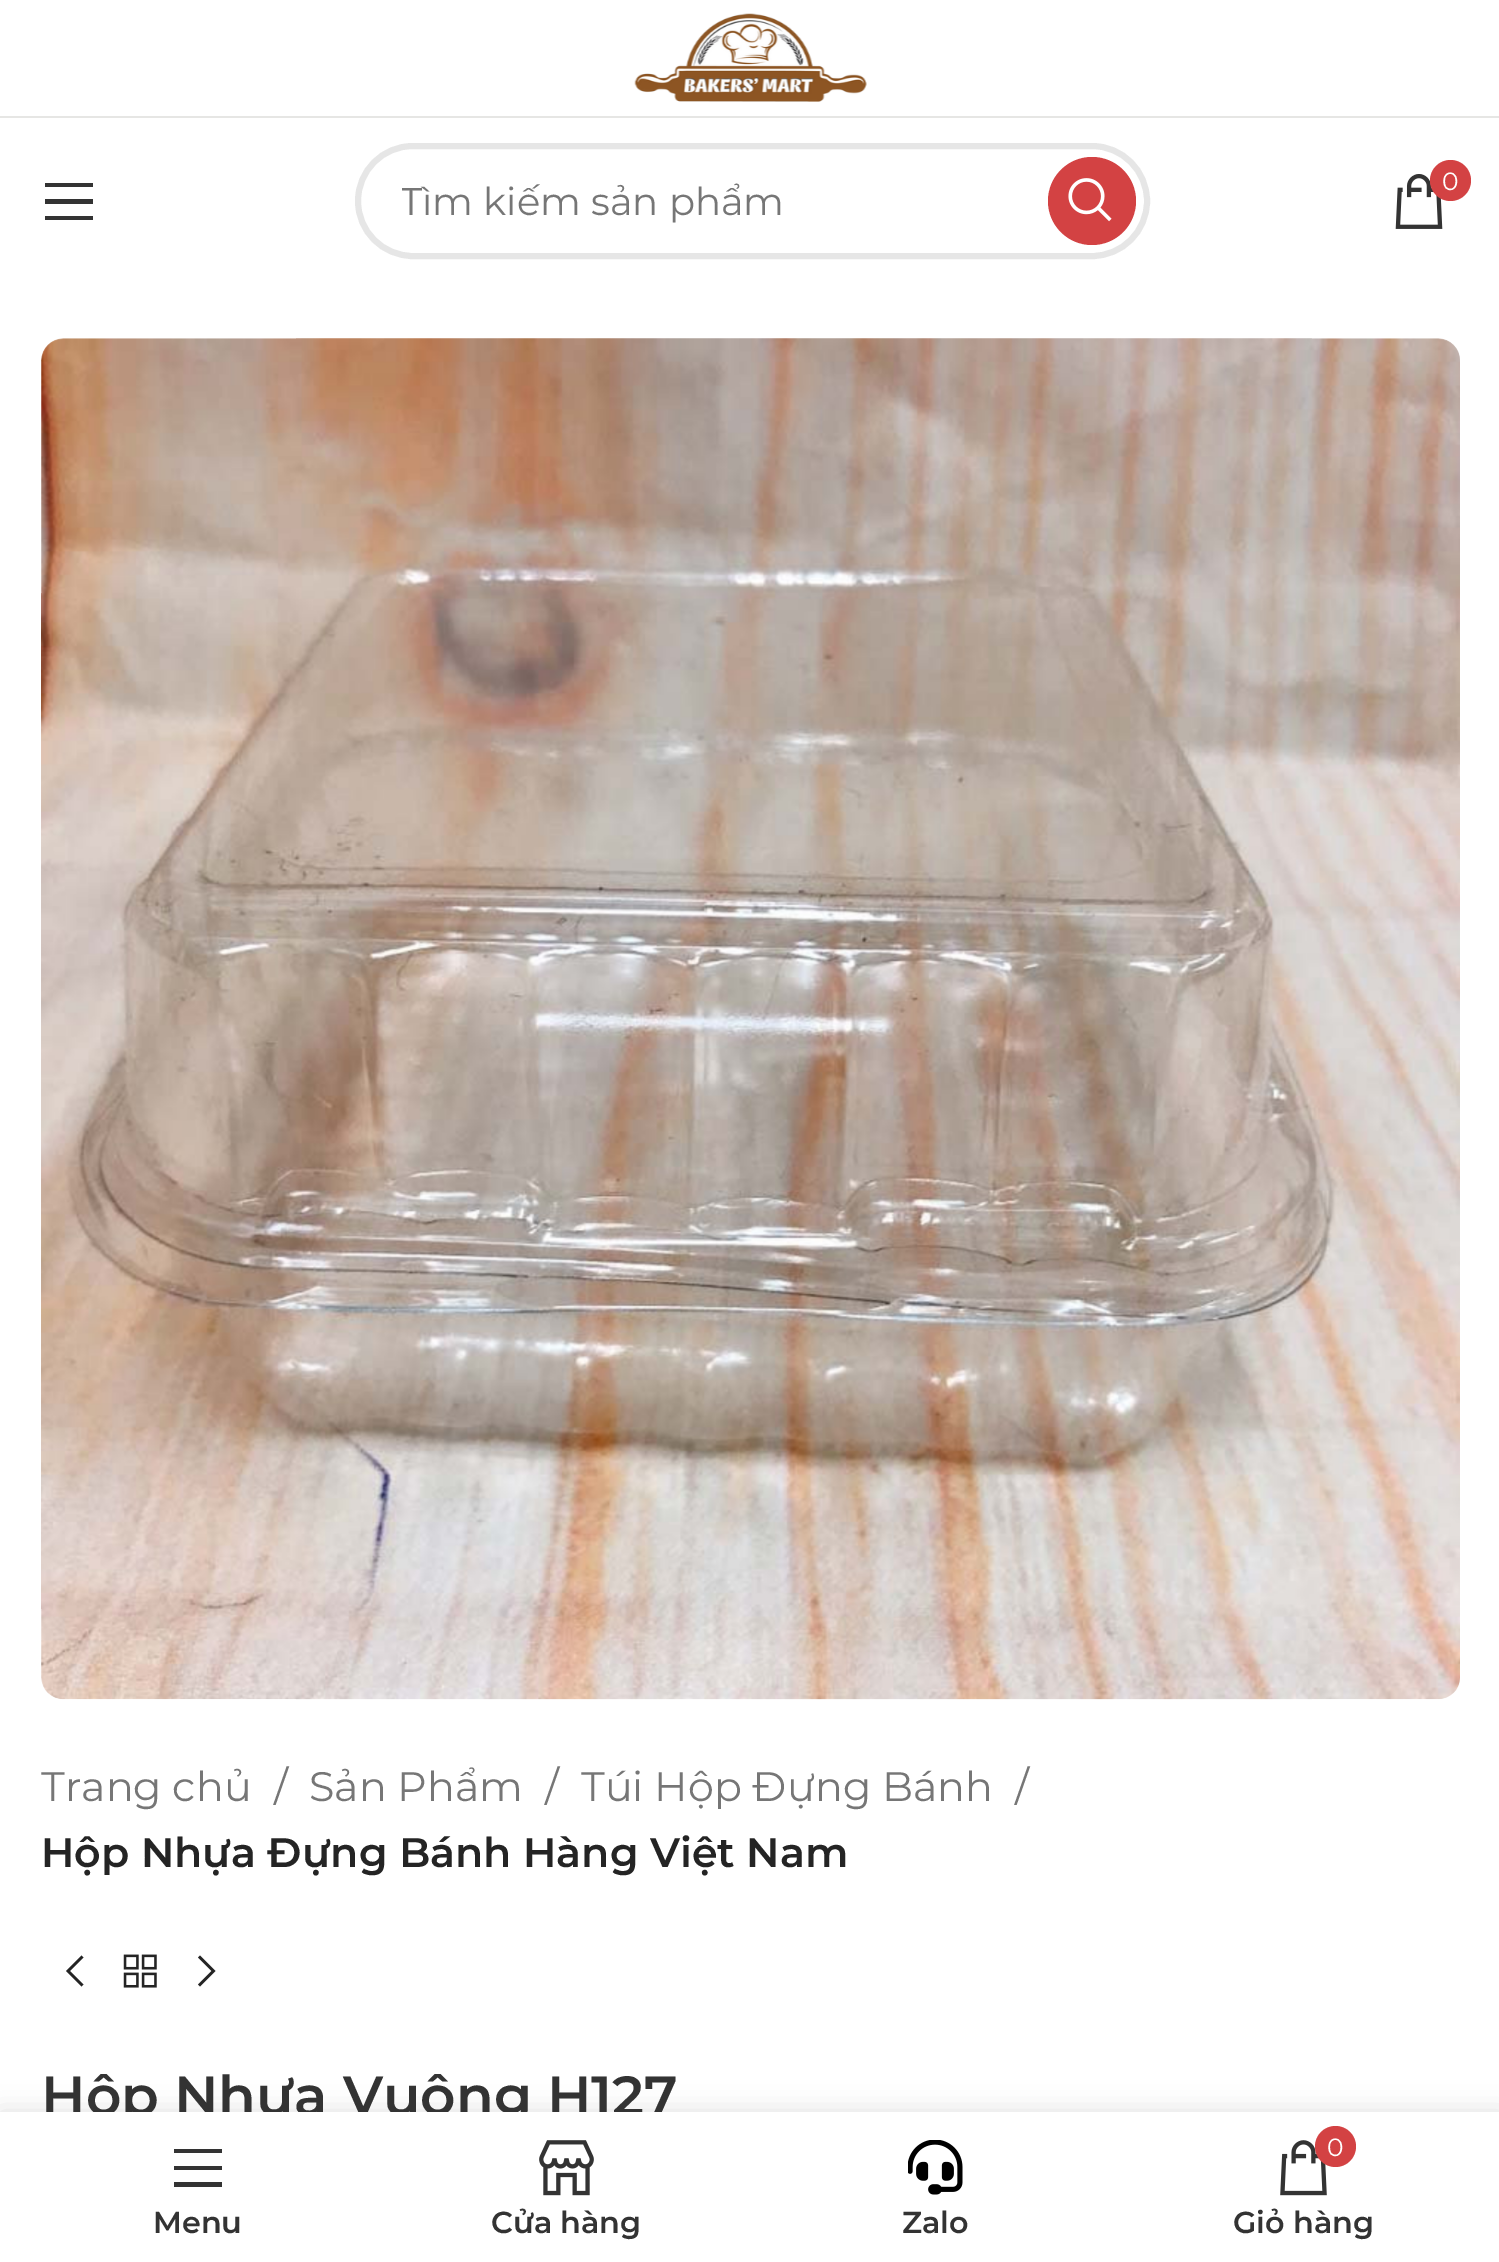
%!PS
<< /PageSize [1499 2262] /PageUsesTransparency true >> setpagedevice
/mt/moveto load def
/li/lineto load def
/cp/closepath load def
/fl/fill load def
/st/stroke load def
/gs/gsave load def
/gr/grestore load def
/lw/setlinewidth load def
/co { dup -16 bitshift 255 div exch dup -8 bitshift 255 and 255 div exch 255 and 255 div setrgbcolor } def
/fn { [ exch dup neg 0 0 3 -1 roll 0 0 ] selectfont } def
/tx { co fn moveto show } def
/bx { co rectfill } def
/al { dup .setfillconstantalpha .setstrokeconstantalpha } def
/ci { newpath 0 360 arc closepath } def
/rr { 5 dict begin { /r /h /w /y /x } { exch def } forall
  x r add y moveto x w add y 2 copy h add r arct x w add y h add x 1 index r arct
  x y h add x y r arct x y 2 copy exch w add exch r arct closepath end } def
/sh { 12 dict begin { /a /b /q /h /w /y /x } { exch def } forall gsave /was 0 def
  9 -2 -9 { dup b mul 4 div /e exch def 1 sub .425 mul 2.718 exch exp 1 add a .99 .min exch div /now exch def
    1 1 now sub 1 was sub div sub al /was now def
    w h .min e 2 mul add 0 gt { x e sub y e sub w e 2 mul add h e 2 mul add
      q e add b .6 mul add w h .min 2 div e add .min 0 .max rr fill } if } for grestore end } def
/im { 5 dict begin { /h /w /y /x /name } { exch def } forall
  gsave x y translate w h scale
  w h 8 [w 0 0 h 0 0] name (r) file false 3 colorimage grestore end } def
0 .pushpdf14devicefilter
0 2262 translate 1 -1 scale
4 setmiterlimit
0 0 1499 2262 16#FFFFFF bx
0 116 1499 2 16#E6E6E4 bx
(media/1.raw) 634 13 233 89 im
16#333333 co
45 187 mt 93 187 li 93 183 li 45 183 li cp 45 204 mt 93 204 li 93 199 li 45 199 li cp 45 220 mt 93 220 li 93 216 li 45 216 li cp fl
16#E6E6E6 co
6 lw
358 146 789 110 55 rr st
16#D34243 co
1092 201 44 ci fl
(media/2.raw) 1068 178 44 44 im
(media/3.raw) 1395 174 48 55 im
1450.5 180.5 20.5 ci fl
(media/4.raw) 41 338 1419 1362 im
16#242424 co
83.5 1957.5 mt 81.5 1955.5 li 66 1971 li 81.5 1986.5 li 83.5 1984.5 li 70 1971 li cp fl
(media/5.raw) 123 1954 34 34 im
198 1957.5 mt 211.5 1971 li 198 1984.5 li 200 1986.5 li 215.5 1971 li 200 1955.5 li cp fl
16#000000 co
0 2112 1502 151 0 12.5 .12 sh
gs
402 176 544 50 rectclip
(Tìm kiếm sản phẩm) 400 215 /Montserrat-Regular 38.5 16#767676 tx
gr
(0) 1442 190 /Montserrat-Regular 25 16#FFFFFF tx
(Trang chủ) 41 1801 /Montserrat-Regular 41.25 16#767676 tx
(/) 274 1801 /Montserrat-Regular 41.25 16#767676 tx
(Sản Phẩm) 309 1801 /Montserrat-Regular 41.25 16#767676 tx
(/) 545 1801 /Montserrat-Regular 41.25 16#767676 tx
(Túi Hộp Đựng Bánh) 581 1801 /Montserrat-Regular 41.25 16#767676 tx
(/) 1015 1801 /Montserrat-Regular 41.25 16#767676 tx
(Hộp Nhựa Đựng Bánh Hàng Việt Nam) 41 1867 /Montserrat-SemiBold 41.25 16#242424 tx
(Hộp Nhựa Vuông H127) 41 2115 /Montserrat-SemiBold 55 16#333333 tx
0 2112 1499 150 16#FFFFFF bx
16#333333 co
174 2153 mt 222 2153 li 222 2149 li 174 2149 li cp 174 2170 mt 222 2170 li 222 2166 li 174 2166 li cp 174 2187 mt 222 2187 li 222 2182 li 174 2182 li cp fl
(Menu) 153 2233 /Montserrat-SemiBold 30.25 16#333333 tx
(media/6.raw) 539 2140 55 56 im
(Cửa hàng) 491 2233 /Montserrat-SemiBold 30.25 16#333333 tx
(media/7.raw) 908 2140 55 55 im
(Zalo) 902 2233 /Montserrat-SemiBold 30.25 16#333333 tx
(media/8.raw) 1280 2140 47 56 im
16#D34243 co
1335.5 2146.5 20.5 ci fl
(0) 1327 2156 /Montserrat-Regular 25 16#FFFFFF tx
(Giỏ hàng) 1233 2233 /Montserrat-SemiBold 30.25 16#333333 tx
.poppdf14devicefilter showpage
